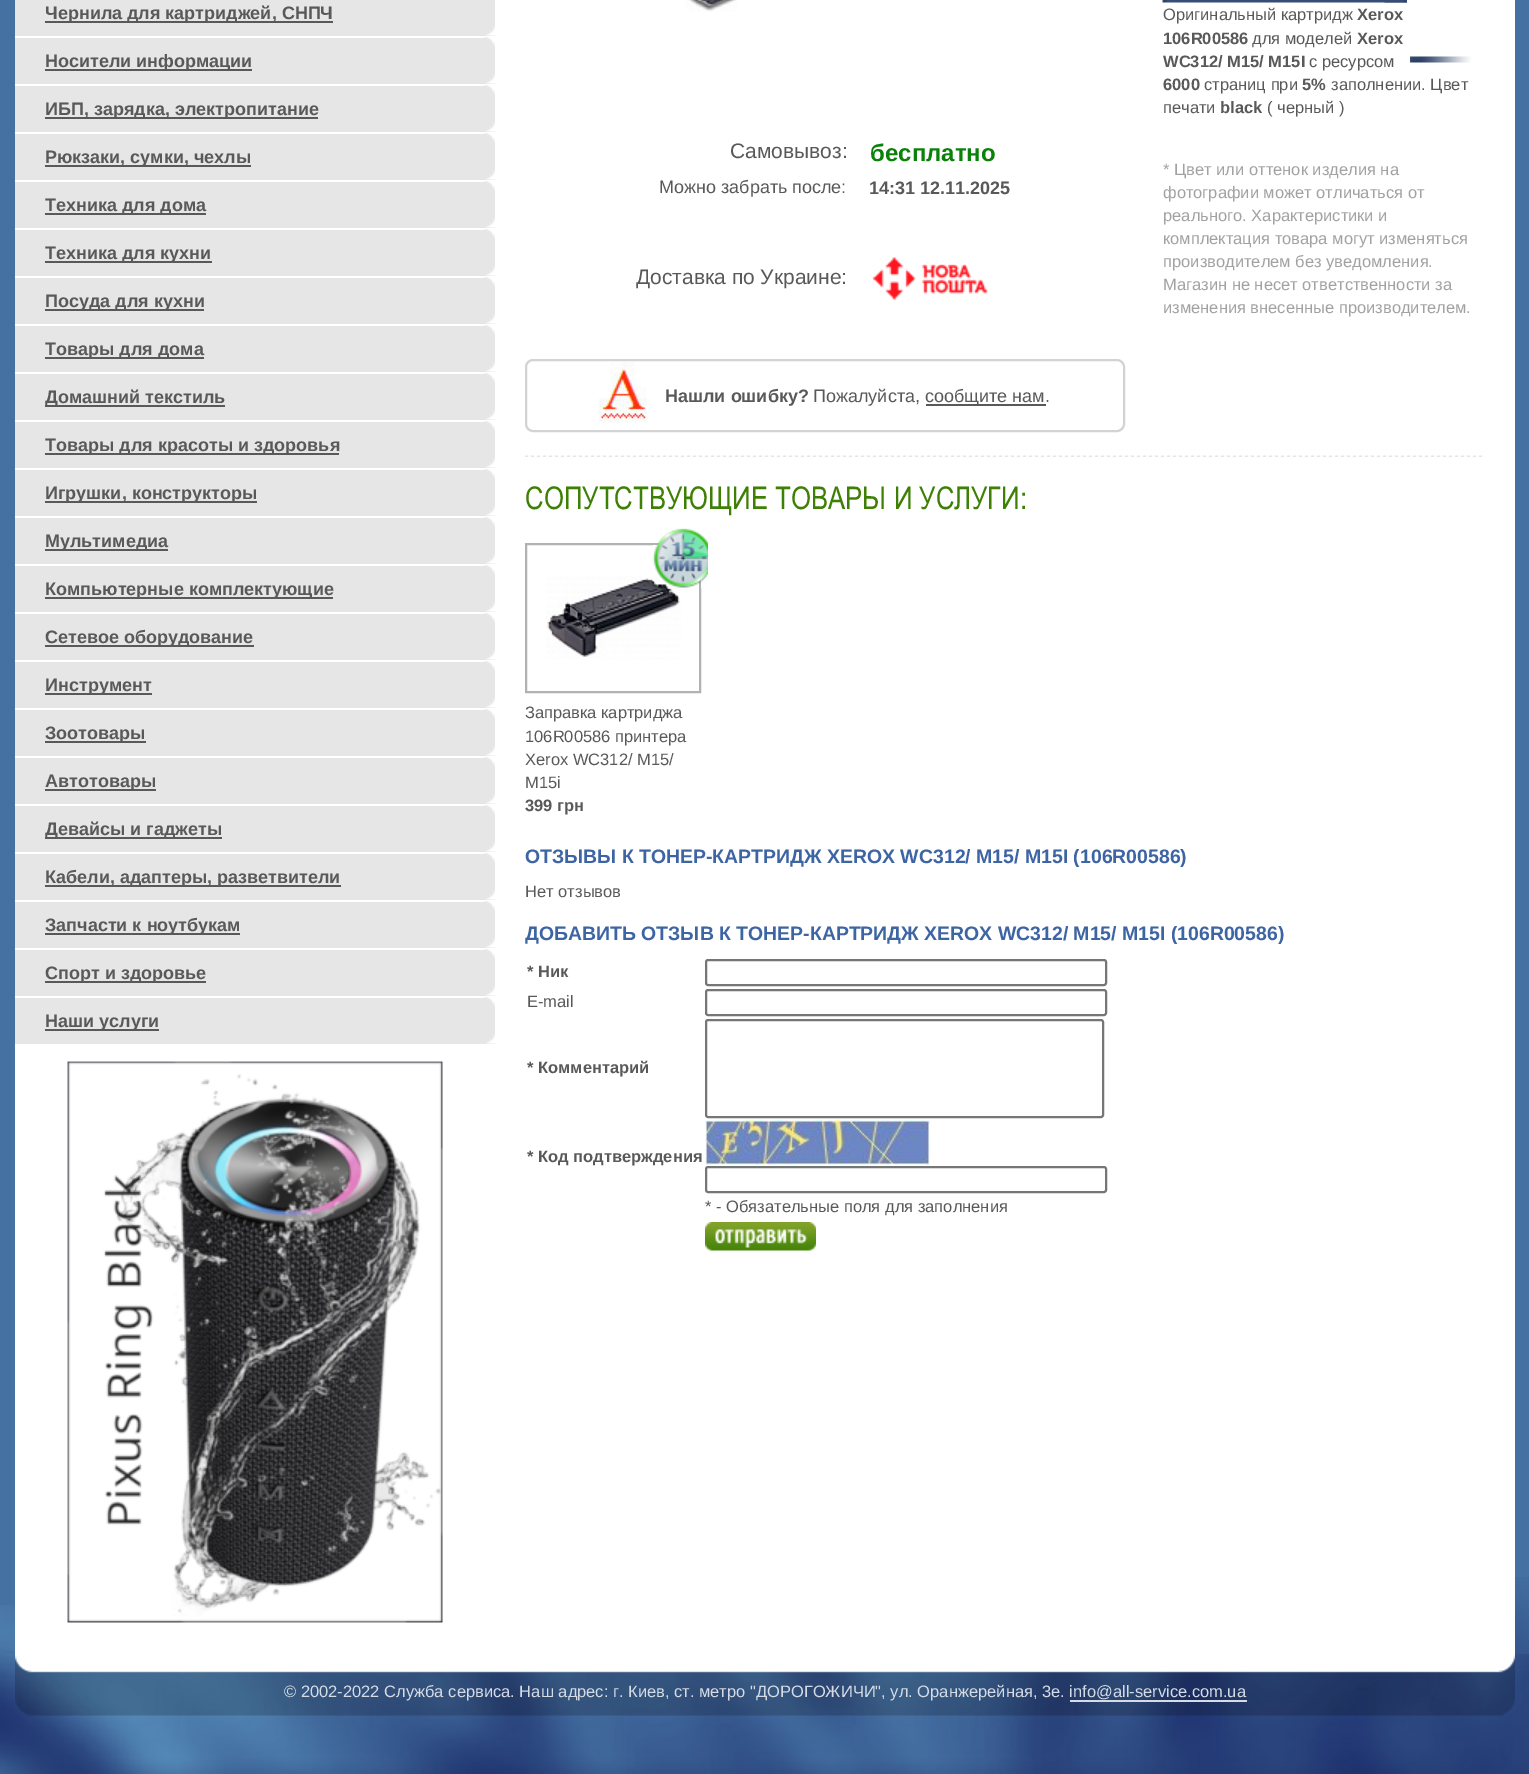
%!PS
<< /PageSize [1529 1774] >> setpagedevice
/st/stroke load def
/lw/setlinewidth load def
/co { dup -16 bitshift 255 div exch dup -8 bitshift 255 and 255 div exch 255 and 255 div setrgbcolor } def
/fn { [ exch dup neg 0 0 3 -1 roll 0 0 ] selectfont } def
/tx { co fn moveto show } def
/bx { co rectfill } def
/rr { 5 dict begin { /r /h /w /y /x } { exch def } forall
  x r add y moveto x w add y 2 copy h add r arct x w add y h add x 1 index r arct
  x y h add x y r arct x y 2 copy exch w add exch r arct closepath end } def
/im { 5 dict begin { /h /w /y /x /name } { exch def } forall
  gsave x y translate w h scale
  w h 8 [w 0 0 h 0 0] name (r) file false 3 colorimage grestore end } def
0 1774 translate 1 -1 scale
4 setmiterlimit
0 0 1529 1774 16#FFFFFF bx
0 0 15 1654 16#4571A2 bx
(media/1.raw) 0 1605 15 46 im
15 0 480 36 16#E6E6E6 bx
(media/2.raw) 486 26 9 10 im
45 21 288 2 16#595959 bx
15 38 480 46 16#E6E6E6 bx
(media/3.raw) 484 37 11 9 im
(media/2.raw) 486 74 9 10 im
45 69 207 2 16#595959 bx
15 86 480 46 16#E6E6E6 bx
(media/3.raw) 484 85 11 9 im
(media/2.raw) 486 122 9 10 im
45 117 273 2 16#595959 bx
15 134 480 46 16#E6E6E6 bx
(media/3.raw) 484 133 11 9 im
(media/2.raw) 486 170 9 10 im
45 165 206 2 16#595959 bx
15 182 480 46 16#E6E6E6 bx
(media/3.raw) 484 181 11 9 im
(media/2.raw) 486 218 9 10 im
45 213 161 2 16#595959 bx
15 230 480 46 16#E6E6E6 bx
(media/3.raw) 484 229 11 9 im
(media/2.raw) 486 266 9 10 im
45 261 167 2 16#595959 bx
15 278 480 46 16#E6E6E6 bx
(media/3.raw) 484 277 11 9 im
(media/2.raw) 486 314 9 10 im
45 309 159 2 16#595959 bx
15 326 480 46 16#E6E6E6 bx
(media/3.raw) 484 325 11 9 im
(media/2.raw) 486 362 9 10 im
45 357 159 2 16#595959 bx
15 374 480 46 16#E6E6E6 bx
(media/3.raw) 484 373 11 9 im
(media/2.raw) 486 410 9 10 im
45 405 180 2 16#595959 bx
15 422 480 46 16#E6E6E6 bx
(media/3.raw) 484 421 11 9 im
(media/2.raw) 486 458 9 10 im
45 453 294 2 16#595959 bx
15 470 480 46 16#E6E6E6 bx
(media/3.raw) 484 469 11 9 im
(media/2.raw) 486 506 9 10 im
45 501 212 2 16#595959 bx
15 518 480 46 16#E6E6E6 bx
(media/3.raw) 484 517 11 9 im
(media/2.raw) 486 554 9 10 im
45 549 123 2 16#595959 bx
15 566 480 46 16#E6E6E6 bx
(media/3.raw) 484 565 11 9 im
(media/2.raw) 486 602 9 10 im
45 597 288 2 16#595959 bx
15 614 480 46 16#E6E6E6 bx
(media/3.raw) 484 613 11 9 im
(media/2.raw) 486 650 9 10 im
45 645 209 2 16#595959 bx
15 662 480 46 16#E6E6E6 bx
(media/3.raw) 484 661 11 9 im
(media/2.raw) 486 698 9 10 im
45 693 107 2 16#595959 bx
15 710 480 46 16#E6E6E6 bx
(media/3.raw) 484 709 11 9 im
(media/2.raw) 486 746 9 10 im
45 741 101 2 16#595959 bx
15 758 480 46 16#E6E6E6 bx
(media/3.raw) 484 757 11 9 im
(media/2.raw) 486 794 9 10 im
45 789 111 2 16#595959 bx
15 806 480 46 16#E6E6E6 bx
(media/3.raw) 484 805 11 9 im
(media/2.raw) 486 842 9 10 im
45 837 177 2 16#595959 bx
15 854 480 46 16#E6E6E6 bx
(media/3.raw) 484 853 11 9 im
(media/2.raw) 486 890 9 10 im
45 885 296 2 16#595959 bx
15 902 480 46 16#E6E6E6 bx
(media/3.raw) 484 901 11 9 im
(media/2.raw) 486 938 9 10 im
45 933 195 2 16#595959 bx
15 950 480 46 16#E6E6E6 bx
(media/3.raw) 484 949 11 9 im
(media/2.raw) 486 986 9 10 im
45 981 161 2 16#595959 bx
15 998 480 46 16#E6E6E6 bx
(media/3.raw) 484 997 11 9 im
(media/2.raw) 486 1034 9 10 im
45 1029 114 2 16#595959 bx
(media/4.raw) 67 1061 376 562 im
(media/5.raw) 686 0 51 12 im
(media/6.raw) 872 257 116 43 im
16#D3D3D3 co
2 lw
526 360 598 71 7 rr st
(media/7.raw) 598 362 49 61 im
926 404 120 2 16#595959 bx
(media/8.raw) 1162 0 245 3 im
(media/9.raw) 1384 0 23 3 im
(media/10.raw) 1410 56 61 7 im
(media/11.raw) 525 455 960 2 im
16#B2B2B2 co
526 544 174 148 rectstroke
(media/13.raw) 546 576 135 83 im
(media/12.raw) 653 528 55 60 im
16#767676 co
706 960 400 25 2 rr st
706 990 400 25 2 rr st
706 1020 397 97 2 rr st
(media/14.raw) 705 1120 225 45 im
706 1167 400 25 2 rr st
(media/15.raw) 705 1222 111 29 im
1515 0 14 1577 16#4571A2 bx
(media/16.raw) 1515 1577 14 77 im
(media/17.raw) 0 1654 1529 120 im
(media/18.raw) 15 1654 18 62 im
(media/19.raw) 33 1654 1464 62 im
1070 1700 177 2 16#D6DCE5 bx
(media/20.raw) 1497 1654 18 62 im
(Чернила для картриджей, СНПЧ) 45 19 /LiberationSans-Bold 18 16#595959 tx
(Носители информации) 45 67 /LiberationSans-Bold 18 16#595959 tx
(ИБП, зарядка, электропитание) 45 115 /LiberationSans-Bold 18 16#595959 tx
(Рюкзаки, сумки, чехлы) 45 163 /LiberationSans-Bold 18 16#595959 tx
(Техника для дома) 45 211 /LiberationSans-Bold 18 16#595959 tx
(Техника для кухни) 45 259 /LiberationSans-Bold 18 16#595959 tx
(Посуда для кухни) 45 307 /LiberationSans-Bold 18 16#595959 tx
(Товары для дома) 45 355 /LiberationSans-Bold 18 16#595959 tx
(Домашний текстиль) 45 403 /LiberationSans-Bold 18 16#595959 tx
(Товары для красоты и здоровья) 45 451 /LiberationSans-Bold 18 16#595959 tx
(Игрушки, конструкторы) 45 499 /LiberationSans-Bold 18 16#595959 tx
(Мультимедиа) 45 547 /LiberationSans-Bold 18 16#595959 tx
(Компьютерные комплектующие) 45 595 /LiberationSans-Bold 18 16#595959 tx
(Сетевое оборудование) 45 643 /LiberationSans-Bold 18 16#595959 tx
(Инструмент) 45 691 /LiberationSans-Bold 18 16#595959 tx
(Зоотовары) 45 739 /LiberationSans-Bold 18 16#595959 tx
(Автотовары) 45 787 /LiberationSans-Bold 18 16#595959 tx
(Девайсы и гаджеты) 45 835 /LiberationSans-Bold 18 16#595959 tx
(Кабели, адаптеры, разветвители) 45 883 /LiberationSans-Bold 18 16#595959 tx
(Запчасти к ноутбукам) 45 931 /LiberationSans-Bold 18 16#595959 tx
(Спорт и здоровье) 45 979 /LiberationSans-Bold 18 16#595959 tx
(Наши услуги) 45 1027 /LiberationSans-Bold 18 16#595959 tx
(Самовывоз:) 730 158 /LiberationSans-Regular 21 16#595959 tx
(бесплатно) 870 161 /LiberationSans-Bold 24 16#0A820A tx
(Можно забрать после:) 659 193 /LiberationSans-Regular 18 16#595959 tx
(14:31 12.11.2025) 869 194 /LiberationSans-Bold 18 16#595959 tx
(Доставка по Украине:) 636 284 /LiberationSans-Regular 21 16#595959 tx
(Нашли ошибку?) 665 402 /LiberationSans-Bold 18 16#595959 tx
(Пожалуйста,) 813 402 /LiberationSans-Regular 18 16#595959 tx
(сообщите нам.) 925 402 /LiberationSans-Regular 18 16#595959 tx
(Оригинальный картридж) 1163 20 /LiberationSans-Regular 16.5 16#595959 tx
(Xerox) 1357 20 /LiberationSans-Bold 16.5 16#595959 tx
(106R00586) 1163 44 /LiberationSans-Bold 16.5 16#595959 tx
(для моделей) 1252 44 /LiberationSans-Regular 16.5 16#595959 tx
(Xerox) 1357 44 /LiberationSans-Bold 16.5 16#595959 tx
(WC312/ M15/ M15I) 1163 67 /LiberationSans-Bold 16.5 16#595959 tx
(c ресурсом) 1309 67 /LiberationSans-Regular 16.5 16#595959 tx
(6000) 1163 90 /LiberationSans-Bold 16.5 16#595959 tx
(страниц при) 1204 90 /LiberationSans-Regular 16.5 16#595959 tx
(5%) 1302 90 /LiberationSans-Bold 16.5 16#595959 tx
(заполнении. Цвет) 1331 90 /LiberationSans-Regular 16.5 16#595959 tx
(печати) 1163 113 /LiberationSans-Regular 16.5 16#595959 tx
(black) 1220 113 /LiberationSans-Bold 16.5 16#595959 tx
(\( черный \)) 1267 113 /LiberationSans-Regular 16.5 16#595959 tx
(* Цвет или оттенок изделия на) 1163 175 /LiberationSans-Regular 16.5 16#A2A2A2 tx
(фотографии может отличаться от) 1163 198 /LiberationSans-Regular 16.5 16#A2A2A2 tx
(реального. Характеристики и) 1163 221 /LiberationSans-Regular 16.5 16#A2A2A2 tx
(комплектация товара могут изменяться) 1163 244 /LiberationSans-Regular 16.5 16#A2A2A2 tx
(производителем без уведомления.) 1163 267 /LiberationSans-Regular 16.5 16#A2A2A2 tx
(Магазин не несет ответственности за) 1163 290 /LiberationSans-Regular 16.5 16#A2A2A2 tx
(изменения внесенные производителем.) 1163 313 /LiberationSans-Regular 16.5 16#A2A2A2 tx
(СОПУТСТВУЮЩИЕ ТОВАРЫ И УСЛУГИ:) 525 509 /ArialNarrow-Regular 31.4 16#3E8004 tx
(Заправка картриджа) 525 718 /LiberationSans-Regular 16.5 16#595959 tx
(106R00586 принтера) 525 742 /LiberationSans-Regular 16.5 16#595959 tx
(Xerox WC312/ M15/) 525 765 /LiberationSans-Regular 16.5 16#595959 tx
(M15i) 525 788 /LiberationSans-Regular 16.5 16#595959 tx
(399 грн) 525 811 /LiberationSans-Bold 16.5 16#595959 tx
(ОТЗЫВЫ К ТОНЕР-КАРТРИДЖ XEROX WC312/ M15/ M15I \(106R00586\)) 525 863 /LiberationSans-Bold 19.45 16#3E65A3 tx
(Нет отзывов) 525 897 /LiberationSans-Regular 16.5 16#595959 tx
(ДОБАВИТЬ ОТЗЫВ К ТОНЕР-КАРТРИДЖ XEROX WC312/ M15/ M15I \(106R00586\)) 525 940 /LiberationSans-Bold 19.45 16#3E65A3 tx
(* Ник) 527 977 /LiberationSans-Bold 16.5 16#595959 tx
(E-mail) 527 1007 /LiberationSans-Regular 16.5 16#595959 tx
(* Комментарий) 527 1073 /LiberationSans-Bold 16.5 16#595959 tx
(* Код подтверждения) 527 1162 /LiberationSans-Bold 16.5 16#595959 tx
(* - Обязательные поля для заполнения) 705 1212 /LiberationSans-Regular 16.5 16#595959 tx
(© 2002-2022 Служба сервиса. Наш адрес: г. Киев, ст. метро "ДОРОГОЖИЧИ", ул. Оранжерейная, 3е. info@all-service.com.ua) 284 1697 /LiberationSans-Regular 16.5 16#D6DCE5 tx
showpage
